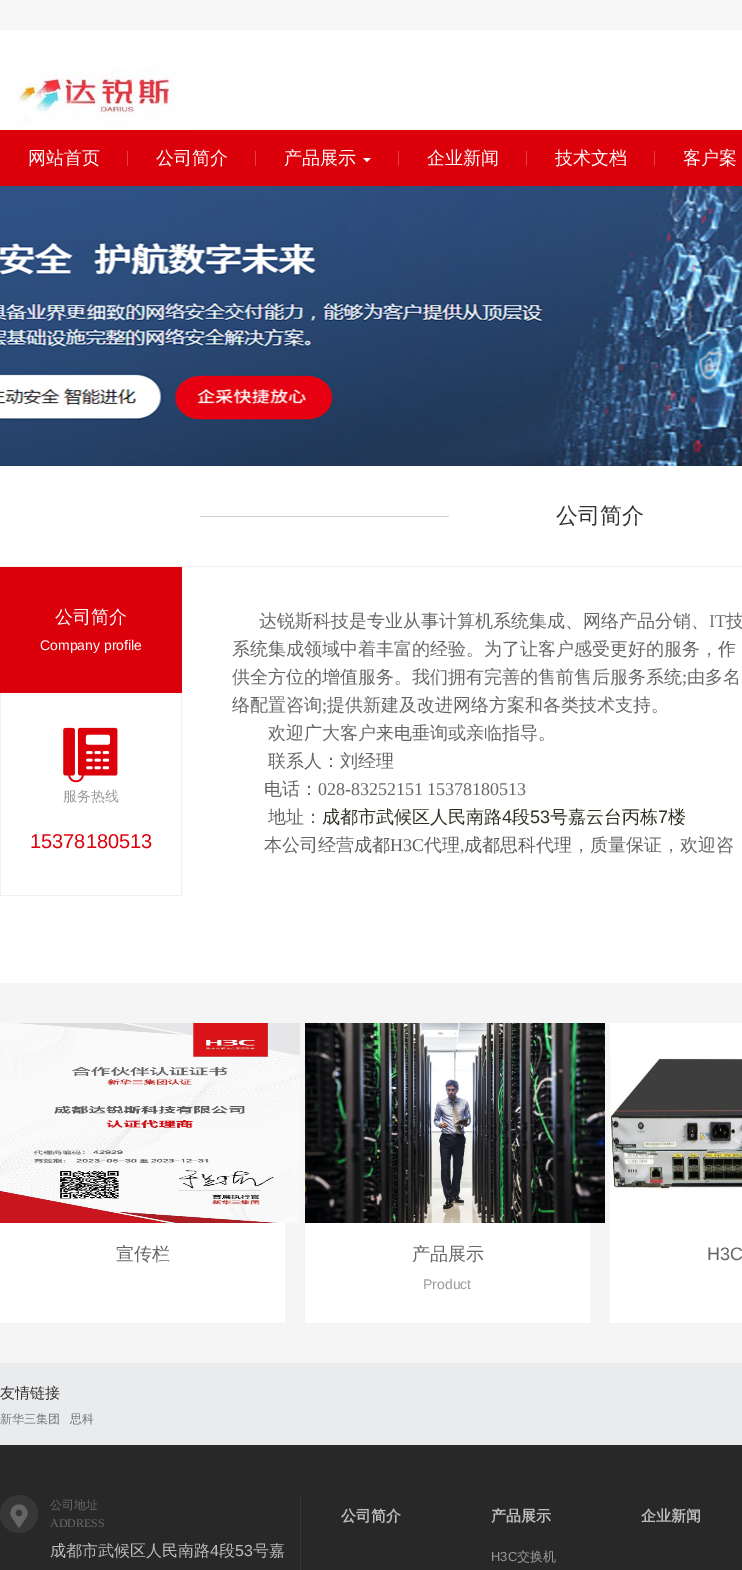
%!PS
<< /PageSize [742 1570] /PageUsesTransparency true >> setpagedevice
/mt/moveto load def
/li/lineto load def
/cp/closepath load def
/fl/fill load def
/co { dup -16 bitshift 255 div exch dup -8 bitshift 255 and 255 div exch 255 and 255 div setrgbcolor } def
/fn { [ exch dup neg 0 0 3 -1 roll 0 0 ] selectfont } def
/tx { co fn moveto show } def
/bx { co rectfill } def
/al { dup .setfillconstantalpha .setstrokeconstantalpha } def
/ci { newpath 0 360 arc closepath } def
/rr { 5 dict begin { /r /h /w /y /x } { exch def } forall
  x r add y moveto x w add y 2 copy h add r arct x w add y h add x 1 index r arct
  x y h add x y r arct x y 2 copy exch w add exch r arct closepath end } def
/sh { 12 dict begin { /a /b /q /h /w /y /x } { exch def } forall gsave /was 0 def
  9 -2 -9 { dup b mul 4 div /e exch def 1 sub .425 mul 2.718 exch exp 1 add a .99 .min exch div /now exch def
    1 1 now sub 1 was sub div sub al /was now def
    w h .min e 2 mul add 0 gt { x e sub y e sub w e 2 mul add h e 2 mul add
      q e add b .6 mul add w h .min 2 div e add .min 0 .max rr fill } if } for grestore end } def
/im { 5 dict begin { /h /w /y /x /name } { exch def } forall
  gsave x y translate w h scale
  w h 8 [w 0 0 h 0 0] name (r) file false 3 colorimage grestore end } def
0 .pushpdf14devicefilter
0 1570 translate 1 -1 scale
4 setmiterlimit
0 0 742 1570 16#FFFFFF bx
0 0 742 30 16#F7F7F7 bx
16#000000 co
0 132 742 56 0 2 .2 sh
(media/1.raw) 3 66 187 64 im
0 130 742 56 16#DC000A bx
127 151 1 15 16#E24242 bx
255 151 1 15 16#E24242 bx
398 151 1 15 16#E24242 bx
16#FFFFFF co
363 158 mt 371 158 li 367 162 li cp fl
526 151 1 15 16#E24242 bx
654 151 1 15 16#E24242 bx
(media/2.raw) 0 186 742 280 im
0 566 742 1 16#F0F0F0 bx
200 516 249 1 16#CFCFCF bx
0 567 182 126 16#DC000A bx
181 693 1 203 16#F0F0F0 bx
0 693 1 114 16#F0F0F0 bx
(media/3.raw) 63 727 55 56 im
0 895 182 1 16#F0F0F0 bx
0 807 1 89 16#F0F0F0 bx
0 983 742 380 16#F5F5F5 bx
0 1223 285 100 16#FFFFFF bx
(media/4.raw) 0 1023 300 200 im
305 1223 285 100 16#FFFFFF bx
(media/5.raw) 305 1023 300 200 im
610 1023 132 300 16#FFFFFF bx
(media/6.raw) 610 1058 132 134 im
0 1363 742 82 16#EAEBED bx
0 1445 742 125 16#282828 bx
300 1495 1 75 16#373737 bx
19 1514 19 ci fl
(media/7.raw) 10 1504 18 24 im
(网站首页) 28 164 /WenQuanYiZenHei-Medium 18 16#FFFFFF tx
(公司简介) 156 164 /WenQuanYiZenHei-Medium 18 16#FFFFFF tx
(产品展示) 284 164 /WenQuanYiZenHei-Medium 18 16#FFFFFF tx
(企业新闻) 427 164 /WenQuanYiZenHei-Medium 18 16#FFFFFF tx
(技术文档) 555 164 /WenQuanYiZenHei-Medium 18 16#FFFFFF tx
(客户案) 683 164 /WenQuanYiZenHei-Medium 18 16#FFFFFF tx
(公司简介) 556 523 /WenQuanYiZenHei-Medium 22 16#333333 tx
(公司简介) 55 623 /WenQuanYiZenHei-Medium 18 16#FFFFFF tx
(Company profile) 40 650 /LiberationSans-Regular 14 16#FFFFFF tx
(服务热线) 63 801 /WenQuanYiZenHei-Medium 14 16#999999 tx
(15378180513) 30 848 /LiberationSans-Regular 20 16#DC000A tx
(达锐斯科技是专业从事计算机系统集成、网络产品分销、) 259 627 /WenQuanYiZenHei-Medium 18 16#666666 tx
(IT) 709 627 /LiberationSerif-Regular 18 16#666666 tx
(技) 726 627 /WenQuanYiZenHei-Medium 18 16#666666 tx
(系统集成领域中着丰富的经验。为了让客户感受更好的服务，作) 232 655 /WenQuanYiZenHei-Medium 18 16#666666 tx
(供全方位的增值服务。我们拥有完善的售前售后服务系统) 232 683 /WenQuanYiZenHei-Medium 18 16#666666 tx
(;) 682 683 /LiberationSerif-Regular 18 16#666666 tx
(由多名) 687 683 /WenQuanYiZenHei-Medium 18 16#666666 tx
(络配置咨询) 232 711 /WenQuanYiZenHei-Medium 18 16#666666 tx
(;) 322 711 /LiberationSerif-Regular 18 16#666666 tx
(提供新建及改进网络方案和各类技术支持。) 327 711 /WenQuanYiZenHei-Medium 18 16#666666 tx
(欢迎广大客户来电垂询或亲临指导。) 268 739 /WenQuanYiZenHei-Medium 18 16#666666 tx
(联系人：刘经理) 268 767 /WenQuanYiZenHei-Medium 18 16#666666 tx
(电话：) 264 795 /WenQuanYiZenHei-Medium 18 16#666666 tx
(028-83252151 15378180513) 318 795 /LiberationSerif-Regular 18 16#666666 tx
(地址：) 268 823 /WenQuanYiZenHei-Medium 18 16#666666 tx
(成都市武候区人民南路) 322 823 /WenQuanYiZenHei-Medium 18 16#2F2F22 tx
(4) 502 823 /LiberationSans-Regular 18 16#2F2F22 tx
(段) 512 823 /WenQuanYiZenHei-Medium 18 16#2F2F22 tx
(53) 530 823 /LiberationSans-Regular 18 16#2F2F22 tx
(号嘉云台丙栋) 550 823 /WenQuanYiZenHei-Medium 18 16#2F2F22 tx
(7) 658 823 /LiberationSans-Regular 18 16#2F2F22 tx
(楼) 668 823 /WenQuanYiZenHei-Medium 18 16#2F2F22 tx
(本公司经营) 264 851 /WenQuanYiZenHei-Medium 18 16#666666 tx
(成都) 354 851 /WenQuanYiZenHei-Medium 18 16#5D5D5D tx
(H3C) 390 851 /LiberationSerif-Regular 18 16#5D5D5D tx
(代理) 424 851 /WenQuanYiZenHei-Medium 18 16#666666 tx
(,) 460 851 /LiberationSerif-Regular 18 16#666666 tx
(成都思科) 464 851 /WenQuanYiZenHei-Medium 18 16#5D5D5D tx
(代理，质量保证，欢迎咨) 536 851 /WenQuanYiZenHei-Medium 18 16#666666 tx
(宣传栏) 116 1260 /WenQuanYiZenHei-Medium 18 16#666666 tx
(产品展示) 412 1260 /WenQuanYiZenHei-Medium 18 16#666666 tx
(Product) 423 1289 /LiberationSans-Regular 14 16#999999 tx
(H3C) 707 1260 /LiberationSans-Regular 18 16#666666 tx
(友情链接) 0 1398 /WenQuanYiZenHei-Medium 15 16#333333 tx
(新华三集团) 0 1423 /WenQuanYiZenHei-Medium 12 16#74777C tx
(思科) 70 1423 /WenQuanYiZenHei-Medium 12 16#74777C tx
(公司地址) 50 1509 /WenQuanYiZenHei-Medium 12 16#666666 tx
(ADDRESS) 50 1527 /LiberationSerif-Regular 12 16#666666 tx
(成都市武候区人民南路) 50 1556 /WenQuanYiZenHei-Medium 16 16#BDBDBD tx
(4) 210 1556 /LiberationSans-Regular 16 16#BDBDBD tx
(段) 219 1556 /WenQuanYiZenHei-Medium 16 16#BDBDBD tx
(53) 235 1556 /LiberationSans-Regular 16 16#BDBDBD tx
(号嘉) 253 1556 /WenQuanYiZenHei-Medium 16 16#BDBDBD tx
(公司简介) 341 1521 /WenQuanYiZenHei-Bold 15 16#BDBDBD tx
(产品展示) 491 1521 /WenQuanYiZenHei-Bold 15 16#BDBDBD tx
(H3C) 491 1561 /LiberationSans-Regular 13 16#999999 tx
(交换机) 517 1561 /WenQuanYiZenHei-Medium 13 16#999999 tx
(企业新闻) 641 1521 /WenQuanYiZenHei-Bold 15 16#BDBDBD tx
.poppdf14devicefilter showpage
